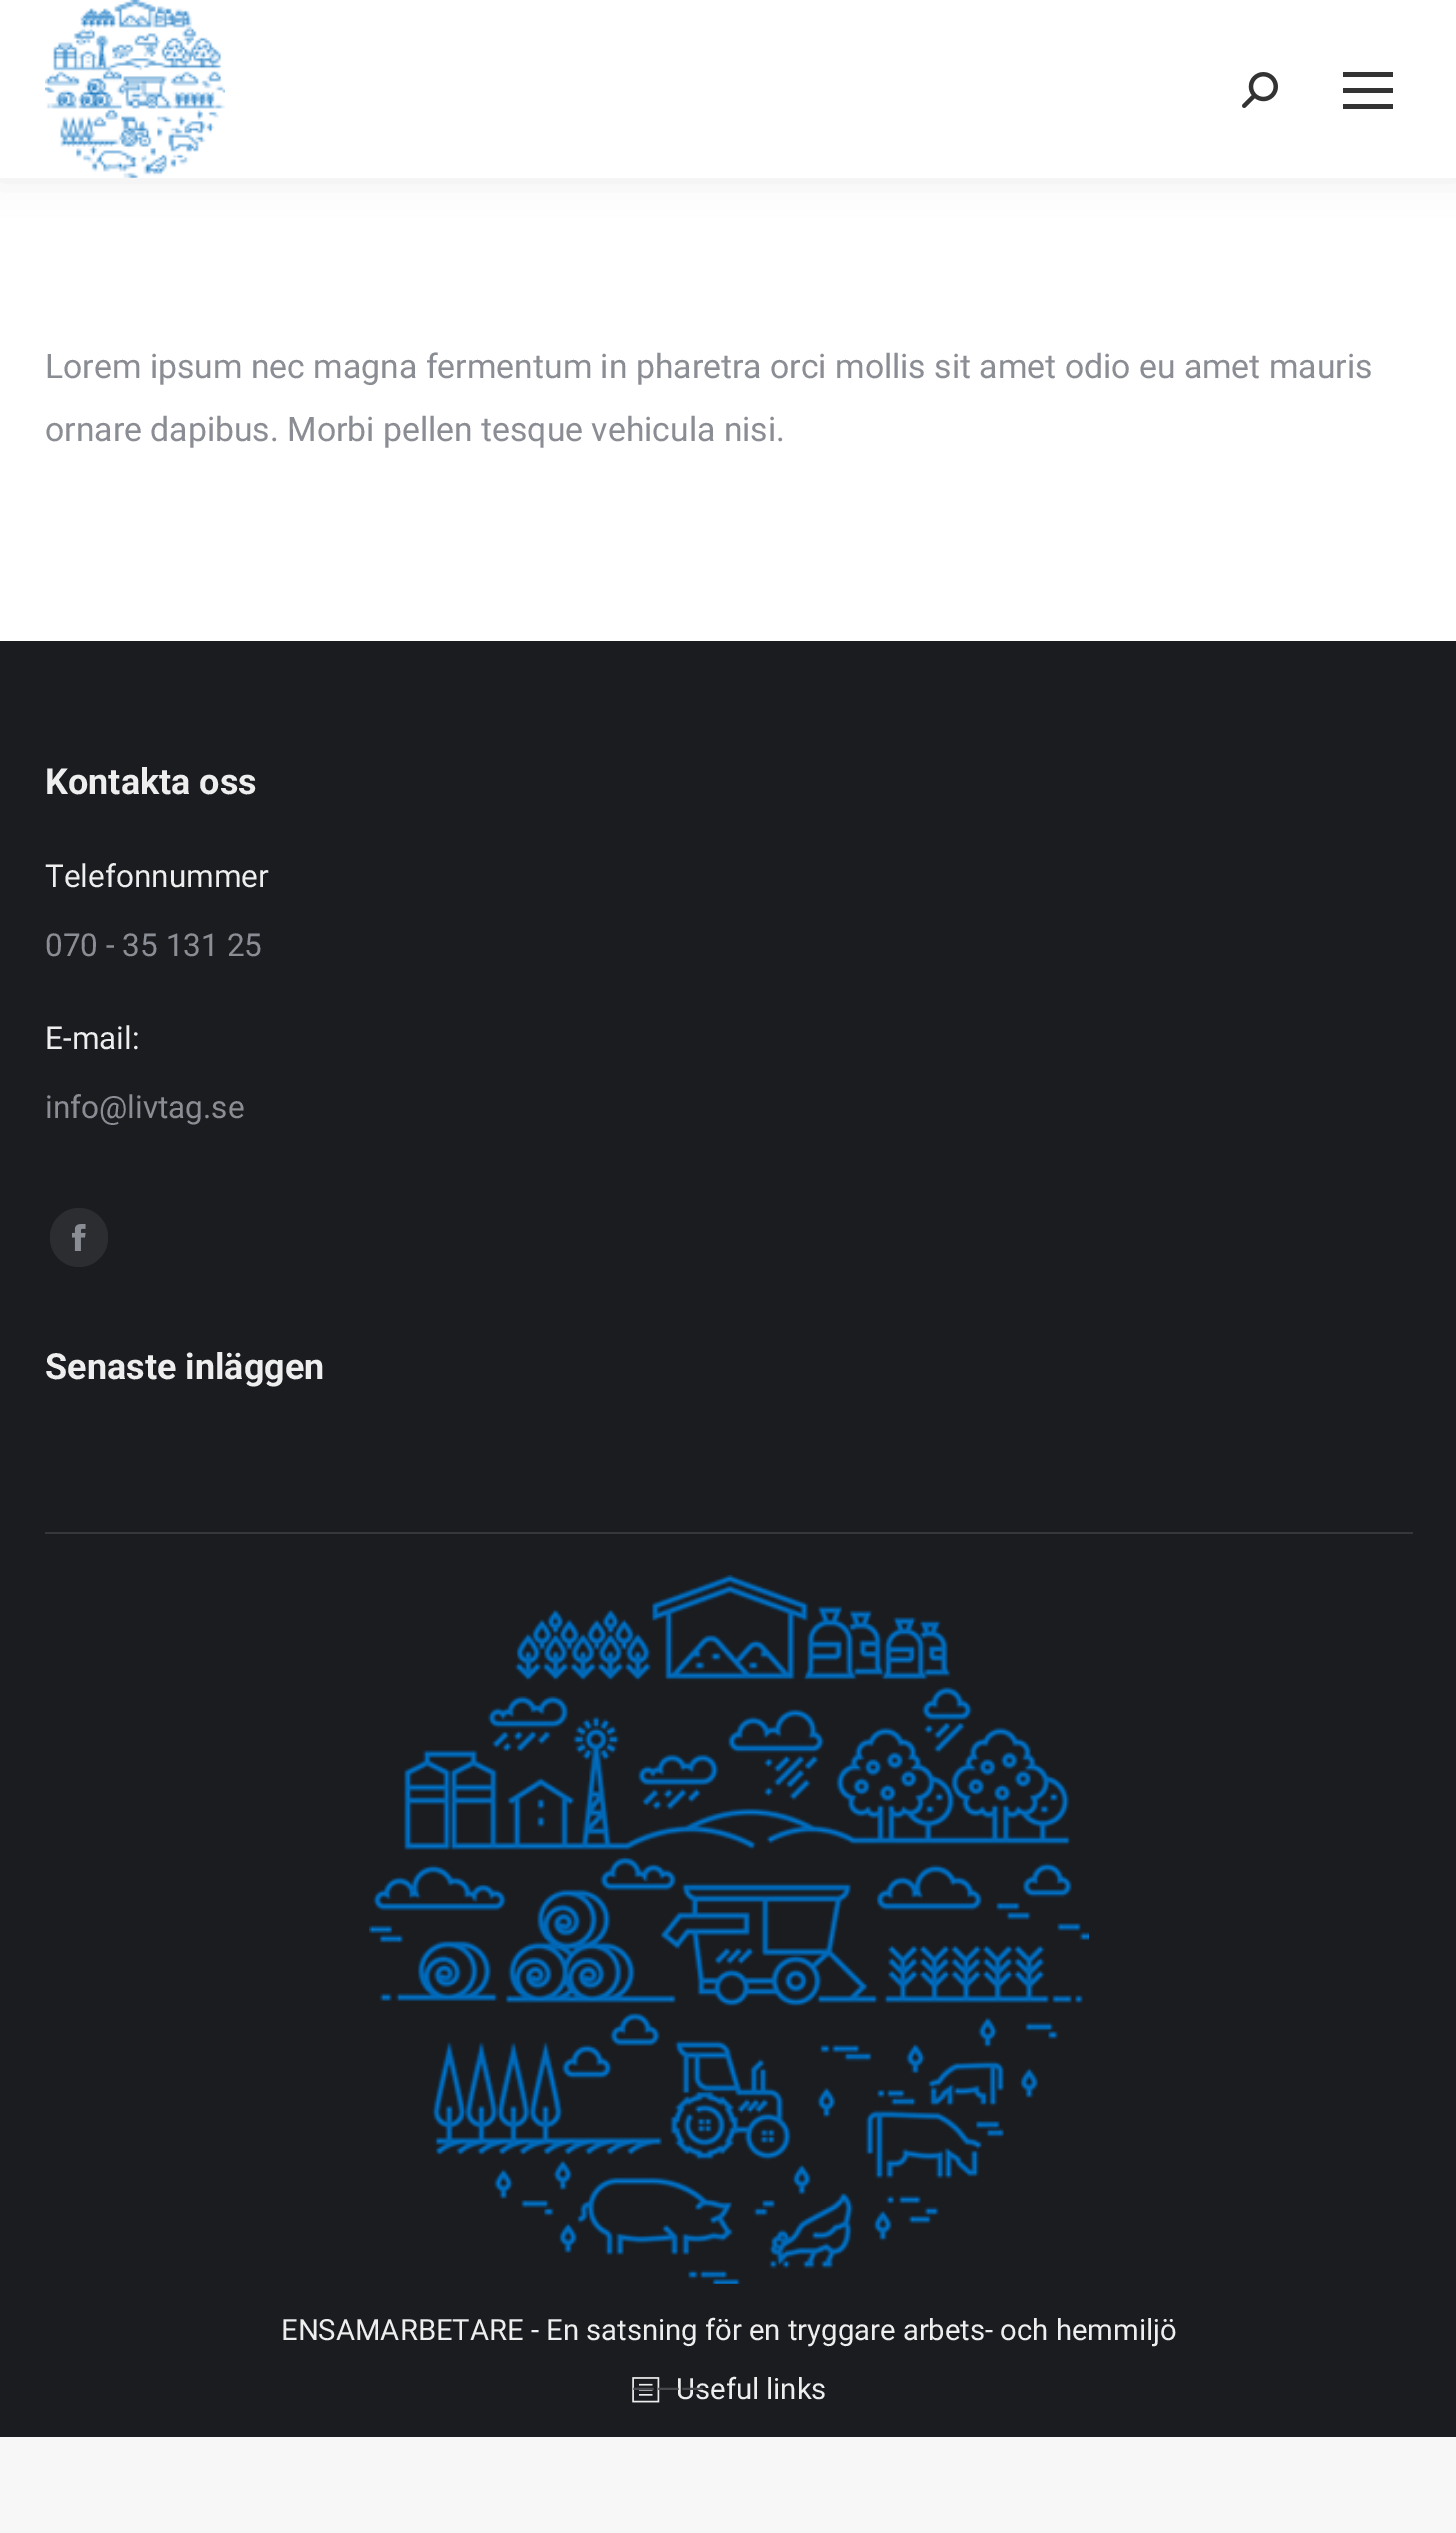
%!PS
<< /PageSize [1456 2533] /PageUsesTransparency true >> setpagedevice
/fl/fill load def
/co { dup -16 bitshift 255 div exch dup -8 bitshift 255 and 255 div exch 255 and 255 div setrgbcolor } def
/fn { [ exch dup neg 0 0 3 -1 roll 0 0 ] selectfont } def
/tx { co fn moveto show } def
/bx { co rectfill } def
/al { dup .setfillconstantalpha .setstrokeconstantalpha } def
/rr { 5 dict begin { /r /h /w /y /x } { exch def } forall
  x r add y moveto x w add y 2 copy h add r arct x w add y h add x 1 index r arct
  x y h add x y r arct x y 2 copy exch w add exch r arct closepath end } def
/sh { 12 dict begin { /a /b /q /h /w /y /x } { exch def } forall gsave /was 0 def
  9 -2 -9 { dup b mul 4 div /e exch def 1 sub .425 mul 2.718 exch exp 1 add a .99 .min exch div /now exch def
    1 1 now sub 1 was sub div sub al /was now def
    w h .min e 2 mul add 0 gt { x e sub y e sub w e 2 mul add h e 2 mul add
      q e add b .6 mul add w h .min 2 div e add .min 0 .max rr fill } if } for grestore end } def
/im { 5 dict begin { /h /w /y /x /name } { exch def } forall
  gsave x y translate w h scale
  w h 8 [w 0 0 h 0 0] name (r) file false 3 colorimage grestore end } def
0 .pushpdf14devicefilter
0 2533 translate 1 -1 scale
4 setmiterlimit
0 0 1456 2533 16#F7F7F7 bx
0 178 1456 463 16#FFFFFF bx
16#000000 co
-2 -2 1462 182 0 17 .07 sh
0 0 1456 178 16#FFFFFF bx
(media/1.raw) 45 0 180 178 im
(media/2.raw) 1242 72 36 36 im
1343 72 50 5 16#333333 bx
1343 88 50 5 16#333333 bx
1343 104 50 5 16#333333 bx
0 641 1456 1796 16#1A1C20 bx
16#2B2D31 co
50 1208 58 59 29 rr fl
(media/3.raw) 72 1224 14 27 im
45 1532 1368 2 16#35373B bx
(media/4.raw) 369 1575 720 709 im
(media/5.raw) 632 2377 28 26 im
(Lorem ipsum nec magna fermentum in pharetra orci mollis sit amet odio eu amet mauris) 45 378 /Roboto-Regular 33.75 16#8B8D94 tx
(ornare dapibus. Morbi pellen tesque vehicula nisi.) 45 441 /Roboto-Regular 33.75 16#8B8D94 tx
(Kontakta oss) 45 794 /Roboto-Bold 36 16#EEEEEE tx
(Telefonnummer) 45 887 /Roboto-Regular 31.5 16#EEEEEE tx
(070 - 35 131 25) 45 956 /Roboto-Regular 31.5 16#8B8D94 tx
(E-mail:) 45 1049 /Roboto-Regular 31.5 16#EEEEEE tx
(info@livtag.se) 45 1118 /Roboto-Regular 31.5 16#8B8D94 tx
(Senaste inläggen) 45 1379 /Roboto-Bold 36 16#EEEEEE tx
(ENSAMARBETARE - En satsning för en tryggare arbets- och hemmiljö) 281 2340 /Roboto-Regular 29.25 16#EEEEEE tx
(Useful links) 676 2399 /Roboto-Regular 29.25 16#EEEEEE tx
(———) 631 2400 /Roboto-Regular 31.5 16#47494C tx
.poppdf14devicefilter showpage
